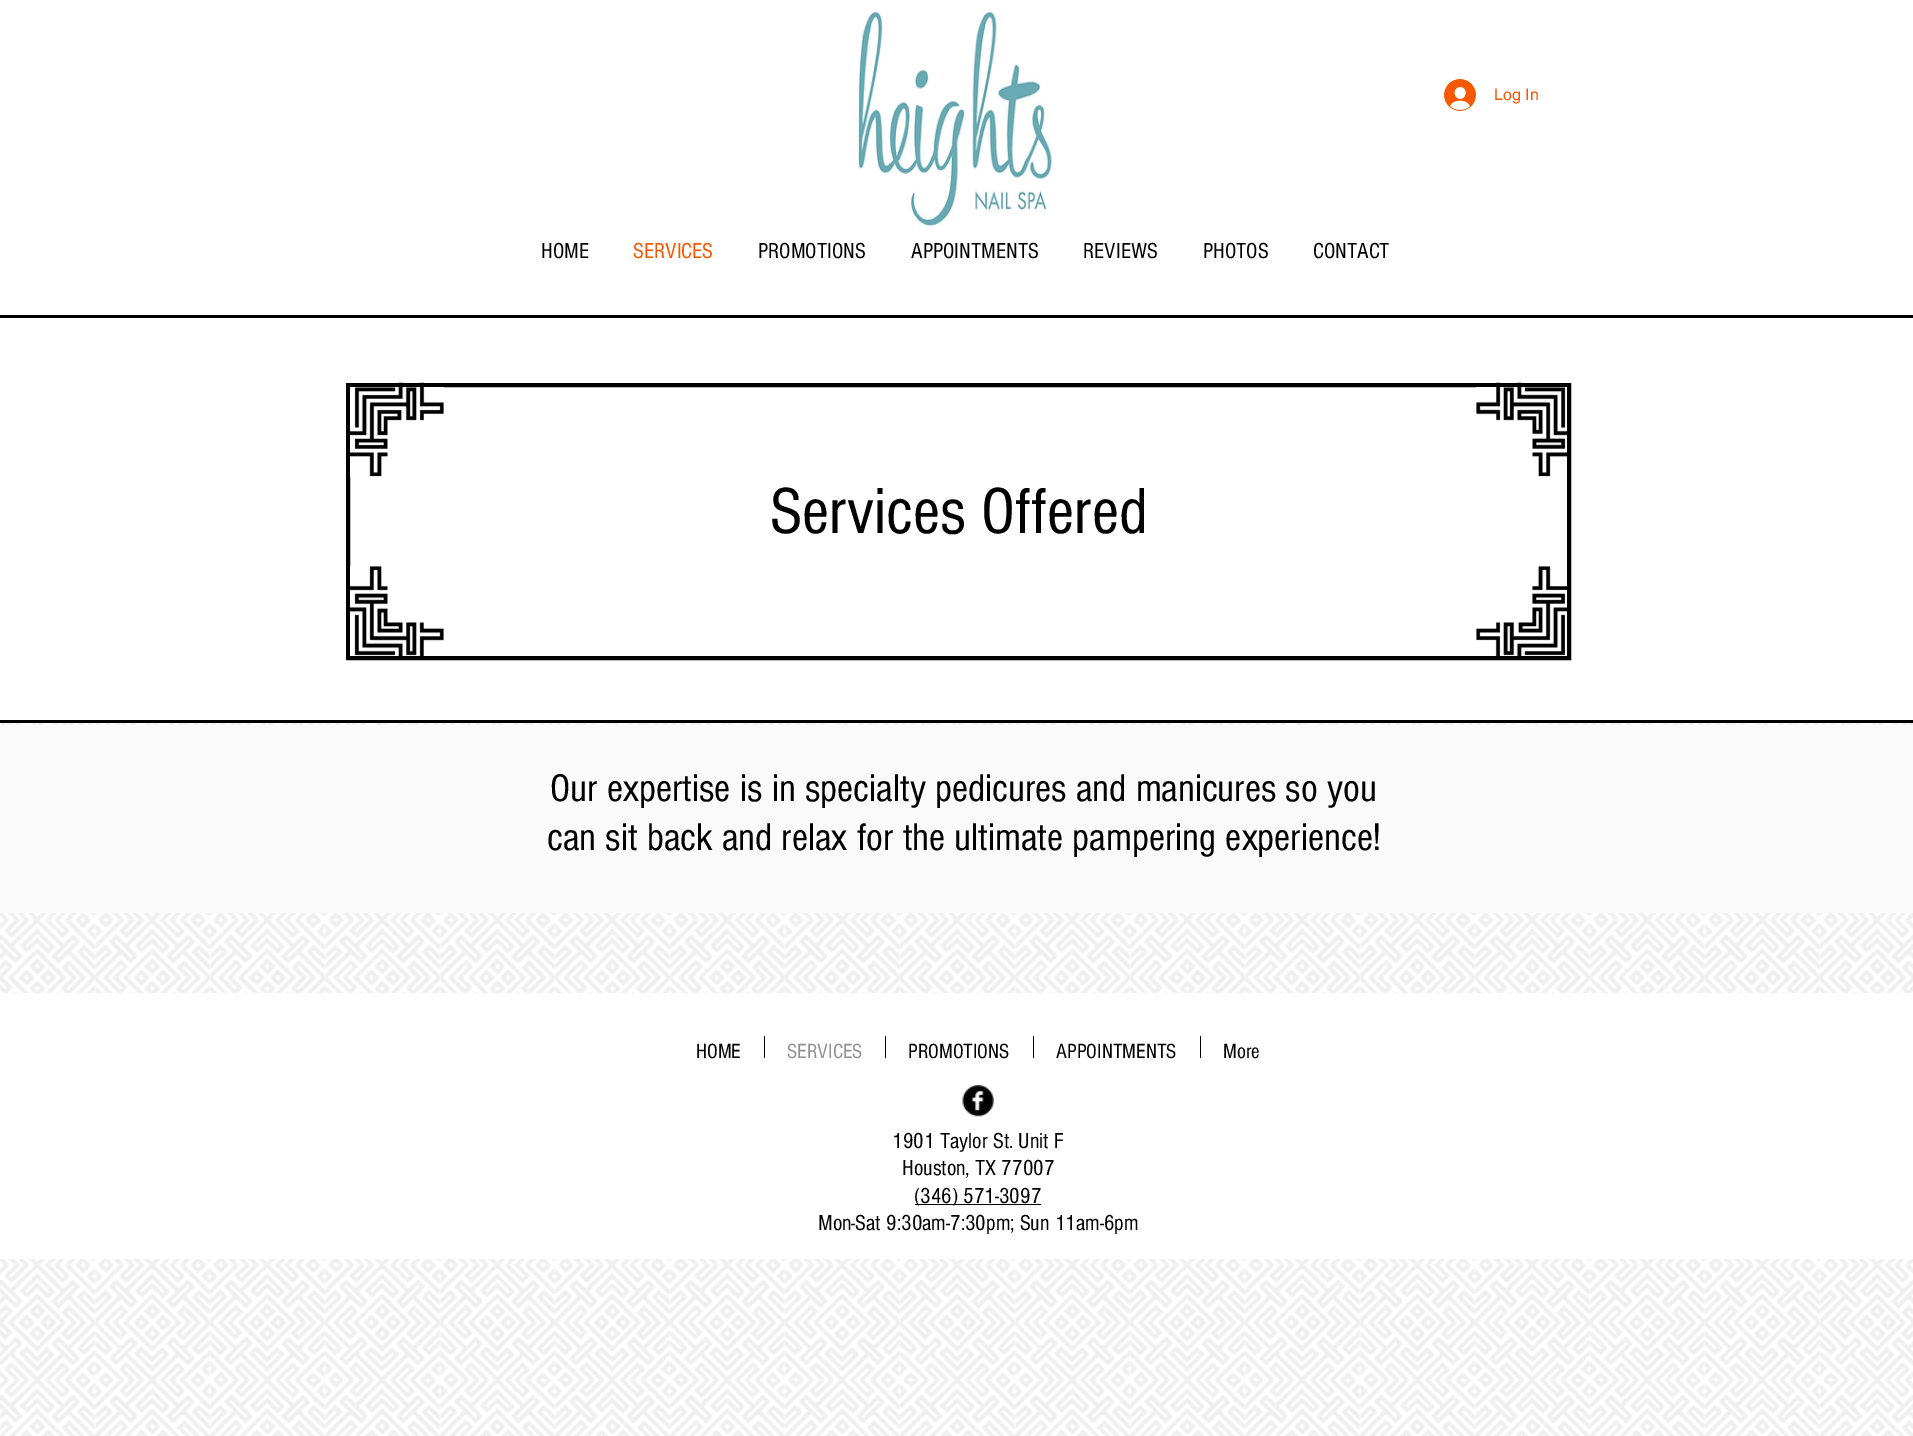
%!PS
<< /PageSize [1913 1436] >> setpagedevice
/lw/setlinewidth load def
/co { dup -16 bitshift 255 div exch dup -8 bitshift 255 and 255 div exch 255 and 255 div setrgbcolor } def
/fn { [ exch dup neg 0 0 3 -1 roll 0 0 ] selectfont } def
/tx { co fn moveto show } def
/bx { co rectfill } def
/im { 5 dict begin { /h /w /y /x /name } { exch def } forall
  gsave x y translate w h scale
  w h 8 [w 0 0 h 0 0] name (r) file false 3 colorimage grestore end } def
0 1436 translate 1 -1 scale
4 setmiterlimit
0 0 1913 1436 16#FFFFFF bx
(media/1.raw) 858 11 194 216 im
(media/2.raw) 1444 79 32 32 im
0 315 1913 3 16#000000 bx
0 720 1913 3 16#000000 bx
4 lw
348 385 1221 273 rectstroke
(media/3.raw) 350 382 94 95 im
(media/4.raw) 1476 382 91 95 im
(media/5.raw) 350 566 94 90 im
(media/6.raw) 1476 566 91 90 im
(media/8.raw) 0 723 1913 713 im
0 725 1913 188 16#FAFAFA bx
0 993 1913 266 16#FFFFFF bx
764 1036 1 22 16#000000 bx
885 1036 1 22 16#000000 bx
1033 1036 1 22 16#000000 bx
1200 1036 1 22 16#000000 bx
(media/7.raw) 962 1085 32 32 im
915 1204 126 1 16#000000 bx
(Log In) 1494 100 /helvetica-Regular 16 16#F95700 tx
(HOME) 541 258 /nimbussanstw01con-Regular 22.5 16#000000 tx
(SERVICES) 633 258 /nimbussanstw01con-Regular 22.5 16#F95700 tx
(PROMOTIONS) 758 258 /nimbussanstw01con-Regular 22.5 16#000000 tx
(APPOINTMENTS) 911 258 /nimbussanstw01con-Regular 22.5 16#000000 tx
(REVIEWS) 1083 258 /nimbussanstw01con-Regular 22.5 16#000000 tx
(PHOTOS) 1203 258 /nimbussanstw01con-Regular 22.5 16#000000 tx
(CONTACT) 1313 258 /nimbussanstw01con-Regular 22.5 16#000000 tx
(Services Offered) 770 533 /nimbussanstw01con-Regular 67.5 16#000000 tx
(Our expertise is in specialty pedicures and manicures so you) 550 801 /nimbussanstw01con-Regular 40 16#000000 tx
(can sit back and relax for the ultimate pampering experience!) 547 850 /nimbussanstw01con-Regular 40 16#000000 tx
(HOME) 696 1058 /nimbussanstw01con-Regular 21.25 16#000000 tx
(SERVICES) 787 1058 /nimbussanstw01con-Regular 21.25 16#929292 tx
(PROMOTIONS) 908 1058 /nimbussanstw01con-Regular 21.25 16#000000 tx
(APPOINTMENTS) 1056 1058 /nimbussanstw01con-Regular 21.25 16#000000 tx
(More) 1223 1058 /nimbussanstw01con-Regular 21.25 16#000000 tx
(1901 Taylor St. Unit F) 892 1148 /nimbussanstw01con-Regular 22.5 16#000000 tx
(Houston, TX 77007) 902 1175 /nimbussanstw01con-Regular 22.5 16#000000 tx
(\(346\) 571-3097) 914 1203 /nimbussanstw01con-Regular 22.5 16#000000 tx
(Mon-Sat 9:30am-7:30pm; Sun 11am-6pm) 818 1230 /nimbussanstw01con-Regular 22.5 16#000000 tx
showpage
